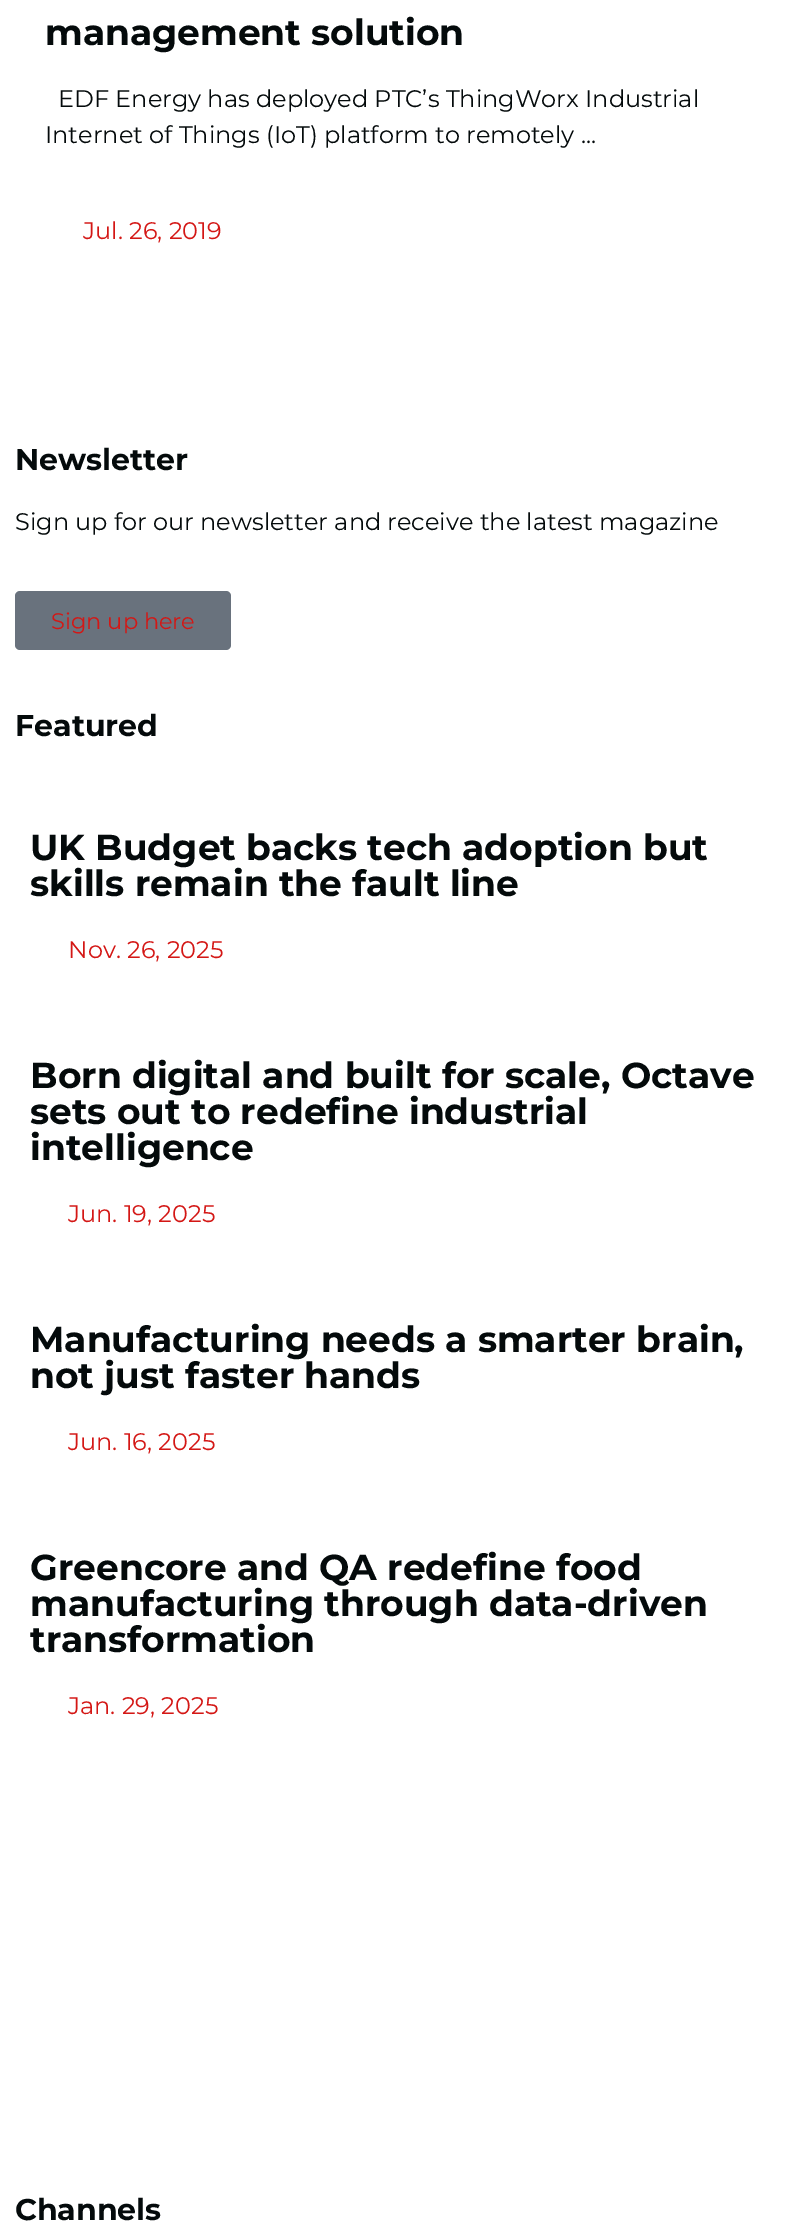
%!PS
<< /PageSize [792 2231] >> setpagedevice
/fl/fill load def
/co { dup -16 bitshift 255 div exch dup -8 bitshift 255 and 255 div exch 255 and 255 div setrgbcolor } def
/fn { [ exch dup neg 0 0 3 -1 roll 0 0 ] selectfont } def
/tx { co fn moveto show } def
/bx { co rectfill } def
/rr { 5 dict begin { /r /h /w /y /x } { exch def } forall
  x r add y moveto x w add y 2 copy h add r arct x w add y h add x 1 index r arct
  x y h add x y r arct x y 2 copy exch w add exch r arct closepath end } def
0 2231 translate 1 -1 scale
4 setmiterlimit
0 0 792 2231 16#FFFFFF bx
16#69727D co
15 591 216 59 5 rr fl
(management solution) 45 45 /Montserrat-Bold 36 16#040A0B tx
(EDF Energy has deployed PTC’s ThingWorx Industrial) 58 107 /Montserrat-Regular 24 16#040A0B tx
(Internet of Things \(IoT\) platform to remotely ...) 45 143 /Montserrat-Regular 24 16#040A0B tx
(Jul. 26, 2019) 83 239 /Montserrat-Regular 24 16#D41715 tx
(Newsletter) 15 470 /Montserrat-Bold 30 16#040A0B tx
(Sign up for our newsletter and receive the latest magazine) 15 530 /Montserrat-Regular 24 16#040A0B tx
(Sign up here) 51 629 /Montserrat-Regular 22.5 16#D41715 tx
(Featured) 15 736 /Montserrat-Bold 30 16#040A0B tx
(UK Budget backs tech adoption but) 30 860 /Montserrat-Bold 36 16#040A0B tx
(skills remain the fault line) 30 896 /Montserrat-Bold 36 16#040A0B tx
(Nov. 26, 2025) 68 958 /Montserrat-Regular 24 16#D41715 tx
(Born digital and built for scale, Octave) 30 1088 /Montserrat-Bold 36 16#040A0B tx
(sets out to redefine industrial) 30 1124 /Montserrat-Bold 36 16#040A0B tx
(intelligence) 30 1160 /Montserrat-Bold 36 16#040A0B tx
(Jun. 19, 2025) 68 1222 /Montserrat-Regular 24 16#D41715 tx
(Manufacturing needs a smarter brain,) 30 1352 /Montserrat-Bold 36 16#040A0B tx
(not just faster hands) 30 1388 /Montserrat-Bold 36 16#040A0B tx
(Jun. 16, 2025) 68 1450 /Montserrat-Regular 24 16#D41715 tx
(Greencore and QA redefine food) 30 1580 /Montserrat-Bold 36 16#040A0B tx
(manufacturing through data-driven) 30 1616 /Montserrat-Bold 36 16#040A0B tx
(transformation) 30 1652 /Montserrat-Bold 36 16#040A0B tx
(Jan. 29, 2025) 68 1714 /Montserrat-Regular 24 16#D41715 tx
(Channels) 15 2220 /Montserrat-Bold 30 16#040A0B tx
showpage
